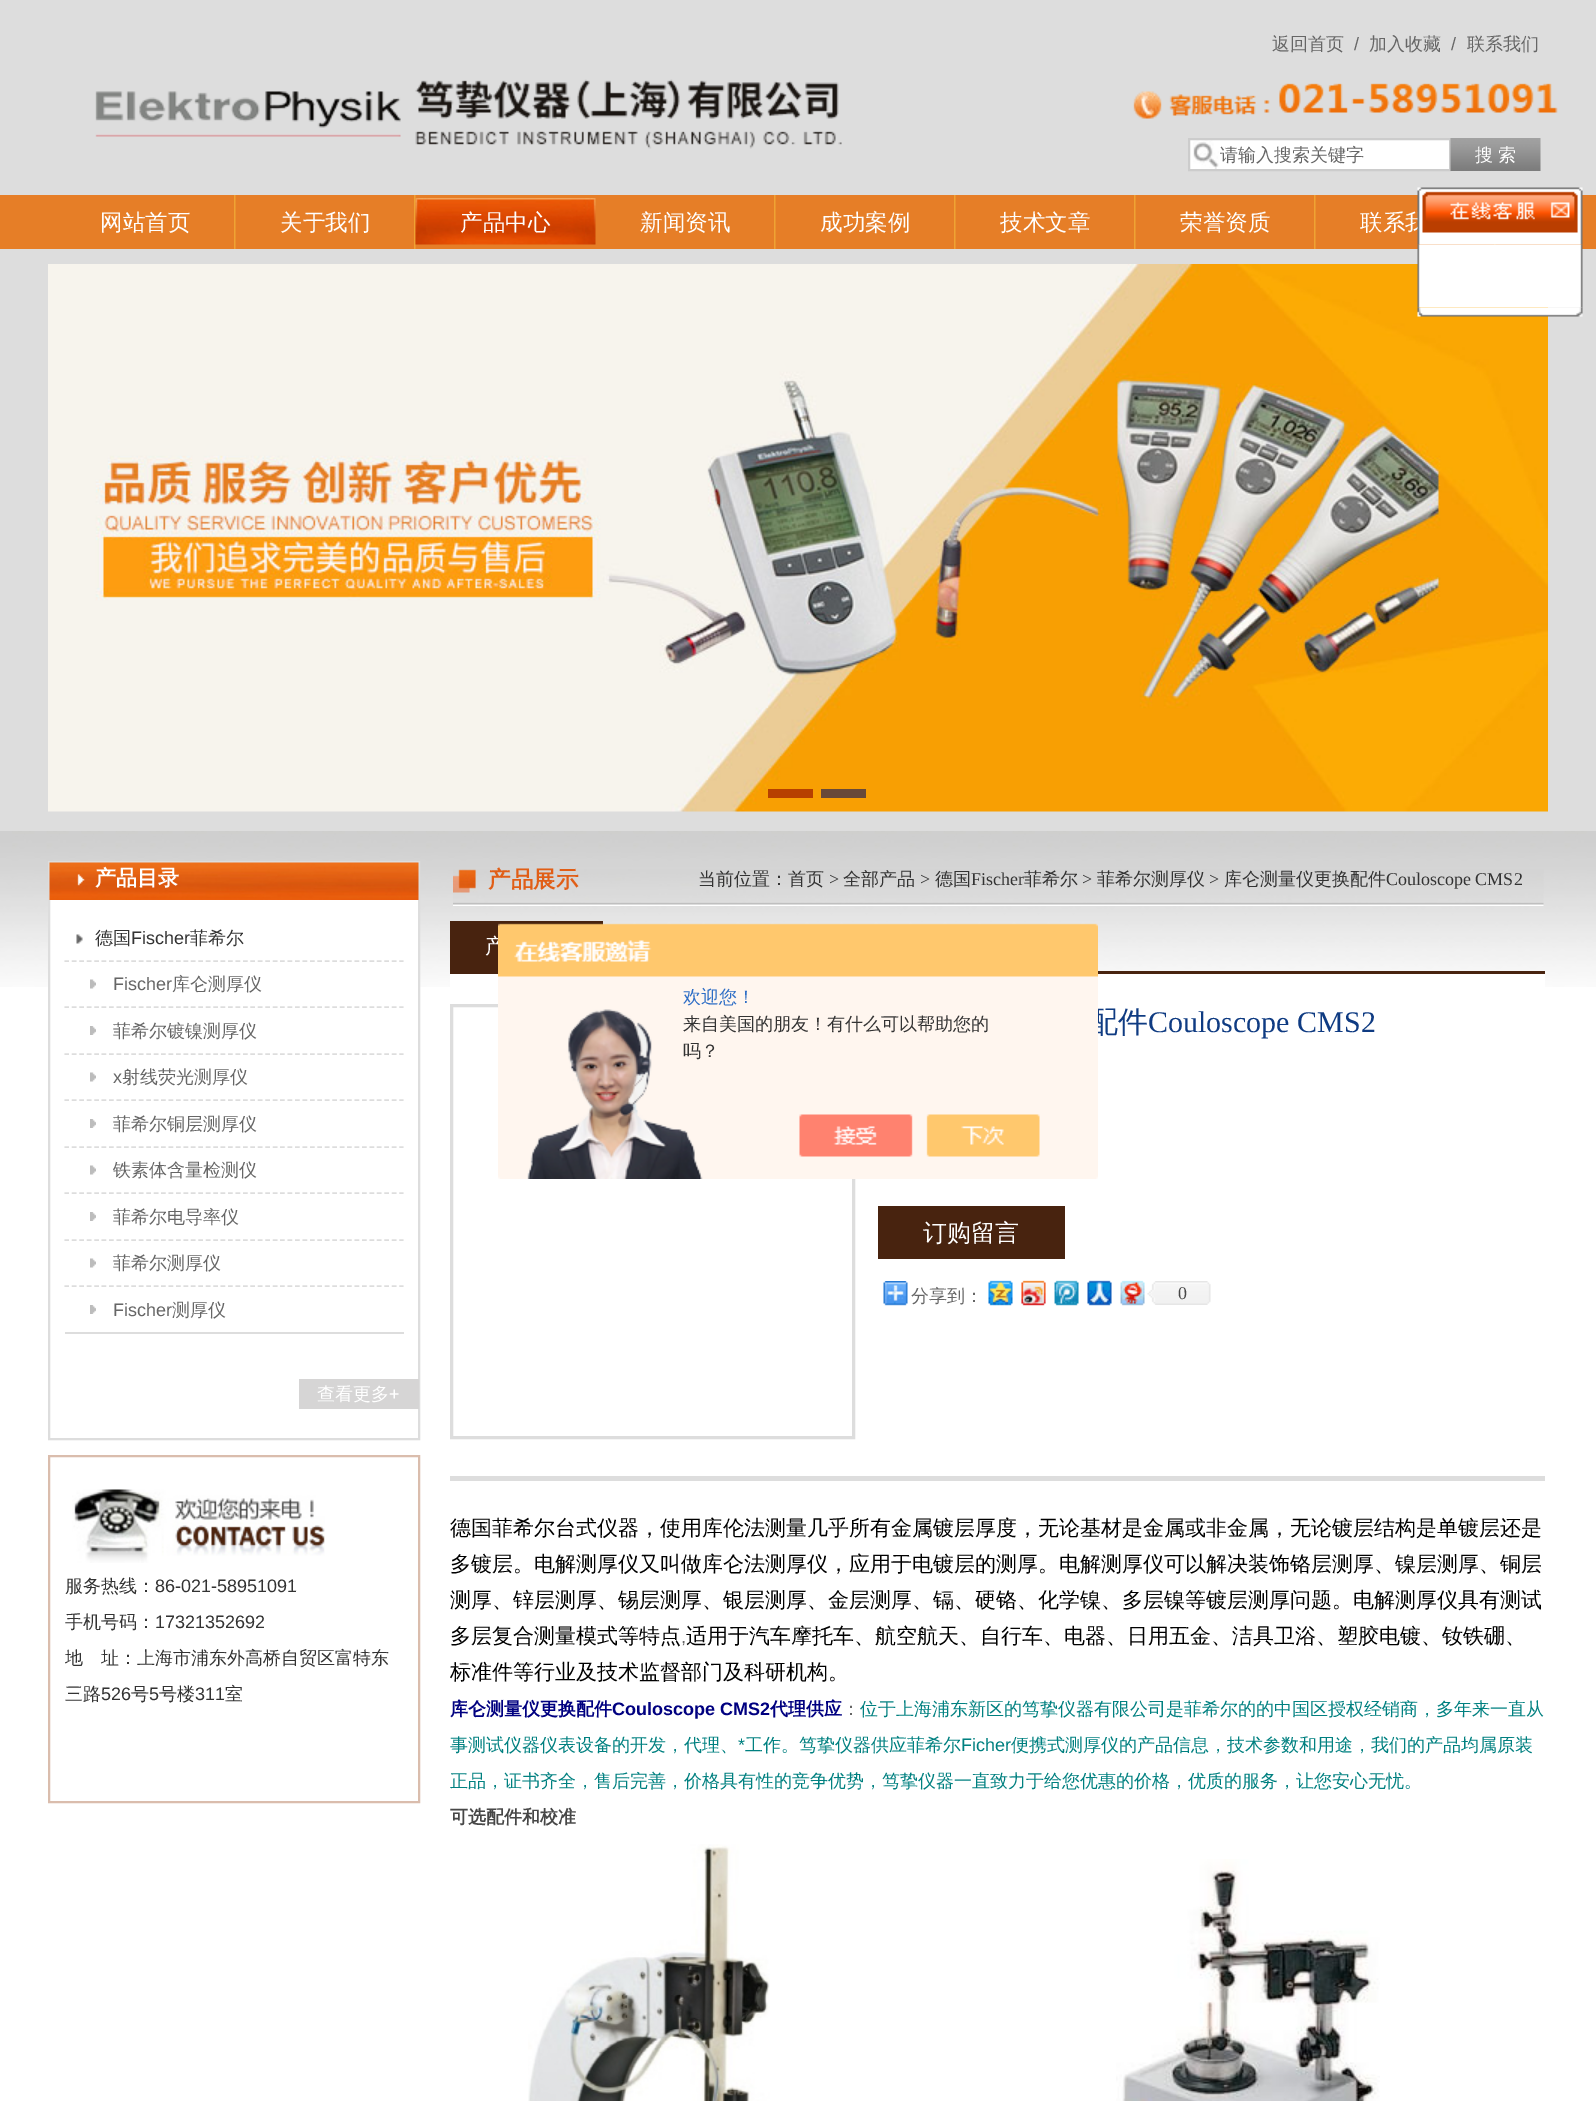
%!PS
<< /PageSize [1596 2101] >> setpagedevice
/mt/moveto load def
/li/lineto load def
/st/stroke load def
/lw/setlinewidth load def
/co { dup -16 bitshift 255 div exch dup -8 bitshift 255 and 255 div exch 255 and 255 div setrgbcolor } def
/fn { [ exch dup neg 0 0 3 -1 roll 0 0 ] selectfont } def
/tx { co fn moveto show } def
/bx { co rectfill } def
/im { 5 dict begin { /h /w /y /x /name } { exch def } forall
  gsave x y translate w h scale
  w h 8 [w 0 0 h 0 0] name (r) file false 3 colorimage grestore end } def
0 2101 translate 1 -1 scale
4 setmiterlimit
0 0 1596 2101 16#FFFFFF bx
0 0 1596 195 16#DDDDDD bx
(media/1.raw) 95 79 747 70 im
(media/2.raw) 1133 83 425 36 im
1190 140 259 29 16#FFFFFF bx
(media/3.raw) 1193 140 26 29 im
16#CCCCCC co
2 lw
1189 139 261 31 rectstroke
(media/4.raw) 1450 138 91 33 im
0 195 1596 54 16#E67E27 bx
(media/5.raw) 234 195 2 54 im
(media/5.raw) 414 195 2 54 im
(media/6.raw) 415 198 181 47 im
(media/5.raw) 774 195 2 54 im
(media/5.raw) 954 195 2 54 im
(media/5.raw) 1134 195 2 54 im
(media/5.raw) 1314 195 2 54 im
(media/7.raw) 1494 244 2 1 im
0 249 1596 582 16#DDDDDD bx
(media/11.raw) 48 264 1500 548 im
(media/9.raw) 1417 244 166 64 im
(media/10.raw) 1417 307 166 10 im
768 789 45 9 16#B74000 bx
821 789 45 9 16#684939 bx
(media/12.raw) 0 831 1596 156 im
50 900 368 87 16#FFFFFF bx
16#DDDDDD co
49 862 370 577 rectstroke
(media/13.raw) 49 862 370 38 im
65 1332 339 2 16#DDDDDD bx
(media/14.raw) 76 934 7 10 im
1.5 lw
[4.5 2.94] 0 setdash
64.5 961 mt 403.5 961 li st
(media/15.raw) 90 979 6 10 im
64.5 1007 mt 403.5 1007 li st
(media/16.raw) 90 1026 6 9 im
64.5 1054 mt 403.5 1054 li st
(media/15.raw) 90 1072 6 10 im
64.5 1100 mt 403.5 1100 li st
(media/16.raw) 90 1119 6 9 im
64.5 1147 mt 403.5 1147 li st
(media/15.raw) 90 1165 6 10 im
64.5 1193 mt 403.5 1193 li st
(media/16.raw) 90 1212 6 9 im
64.5 1240 mt 403.5 1240 li st
(media/15.raw) 90 1258 6 10 im
64.5 1286 mt 403.5 1286 li st
(media/16.raw) 90 1305 6 9 im
299 1379 120 30 16#D6D5D5 bx
16#DABDAD co
2 lw
[] 0 setdash
49 1456 370 346 rectstroke
(media/17.raw) 72 1489 253 74 im
(media/18.raw) 453 869 1091 37 im
450 971 1095 3 16#48230F bx
450 921 153 50 16#48230F bx
450 974 1095 13 16#FFFFFF bx
450 1476 1095 5 16#DDDDDD bx
3 lw
451.5 1005.5 402 432 rectstroke
878 1206 187 53 16#48230F bx
(media/19.raw) 883 1281 25 25 im
(media/20.raw) 988 1280 25 26 im
(media/21.raw) 1021 1280 25 26 im
(media/22.raw) 1054 1280 25 26 im
(media/23.raw) 1087 1280 25 26 im
(media/24.raw) 1120 1280 25 26 im
(media/25.raw) 1147 1281 64 24 im
(media/26.raw) 528 1844 242 257 im
(media/27.raw) 1116 1859 264 242 im
(返回首页) 1272 50 /WenQuanYiZenHei-Medium 18 16#666666 tx
(/) 1354 50 /LiberationSans-Regular 18 16#666666 tx
(加入收藏) 1369 50 /WenQuanYiZenHei-Medium 18 16#666666 tx
(/) 1451 50 /LiberationSans-Regular 18 16#666666 tx
(联系我们) 1467 50 /WenQuanYiZenHei-Medium 18 16#666666 tx
(请输入搜索关键字) 1220 161 /WenQuanYiZenHei-Medium 18 16#666666 tx
(搜 索) 1475 161 /WenQuanYiZenHei-Medium 18 16#FFFFFF tx
(网站首页) 100 230 /WenQuanYiZenHei-Medium 22.5 16#FFFFFF tx
(关于我们) 280 230 /WenQuanYiZenHei-Medium 22.5 16#FFFFFF tx
(产品中心) 460 230 /WenQuanYiZenHei-Medium 22.5 16#FFFFFF tx
(新闻资讯) 640 230 /WenQuanYiZenHei-Medium 22.5 16#FFFFFF tx
(成功案例) 820 230 /WenQuanYiZenHei-Medium 22.5 16#FFFFFF tx
(技术文章) 1000 230 /WenQuanYiZenHei-Medium 22.5 16#FFFFFF tx
(荣誉资质) 1180 230 /WenQuanYiZenHei-Medium 22.5 16#FFFFFF tx
(联系我) 1360 230 /WenQuanYiZenHei-Medium 22.5 16#FFFFFF tx
(media/8.raw) 1417 187 166 58 im
(产品目录) 95 885 /WenQuanYiZenHei-Bold 21 16#FFFFFF tx
(德国) 95 944 /WenQuanYiZenHei-Medium 18 16#333333 tx
(Fischer) 131 944 /LiberationSans-Regular 18 16#333333 tx
(菲希尔) 190 944 /WenQuanYiZenHei-Medium 18 16#333333 tx
(Fischer) 113 990 /LiberationSans-Regular 18 16#666666 tx
(库仑测厚仪) 172 990 /WenQuanYiZenHei-Medium 18 16#666666 tx
(菲希尔镀镍测厚仪) 113 1037 /WenQuanYiZenHei-Medium 18 16#666666 tx
(x) 113 1083 /LiberationSans-Regular 18 16#666666 tx
(射线荧光测厚仪) 122 1083 /WenQuanYiZenHei-Medium 18 16#666666 tx
(菲希尔铜层测厚仪) 113 1130 /WenQuanYiZenHei-Medium 18 16#666666 tx
(铁素体含量检测仪) 113 1176 /WenQuanYiZenHei-Medium 18 16#666666 tx
(菲希尔电导率仪) 113 1223 /WenQuanYiZenHei-Medium 18 16#666666 tx
(菲希尔测厚仪) 113 1269 /WenQuanYiZenHei-Medium 18 16#666666 tx
(Fischer) 113 1316 /LiberationSans-Regular 18 16#666666 tx
(测厚仪) 172 1316 /WenQuanYiZenHei-Medium 18 16#666666 tx
(查看更多) 317 1400 /WenQuanYiZenHei-Medium 18 16#FFFFFF tx
(+) 389 1400 /LiberationSans-Regular 18 16#FFFFFF tx
(服务热线：) 65 1592 /WenQuanYiZenHei-Medium 18 16#333333 tx
(86-021-58951091) 155 1592 /LiberationSans-Regular 18 16#333333 tx
(手机号码：) 65 1628 /WenQuanYiZenHei-Medium 18 16#333333 tx
(17321352692) 155 1628 /LiberationSans-Regular 18 16#333333 tx
(地　址：上海市浦东外高桥自贸区富特东) 65 1664 /WenQuanYiZenHei-Medium 18 16#333333 tx
(三路) 65 1700 /WenQuanYiZenHei-Medium 18 16#333333 tx
(526) 101 1700 /LiberationSans-Regular 18 16#333333 tx
(号) 131 1700 /WenQuanYiZenHei-Medium 18 16#333333 tx
(5) 149 1700 /LiberationSans-Regular 18 16#333333 tx
(号楼) 159 1700 /WenQuanYiZenHei-Medium 18 16#333333 tx
(311) 195 1700 /LiberationSans-Regular 18 16#333333 tx
(室) 225 1700 /WenQuanYiZenHei-Medium 18 16#333333 tx
(产品展示) 488 887 /WenQuanYiZenHei-Bold 22.5 16#E15E16 tx
(当前位置：首页) 698 885 /WenQuanYiZenHei-Medium 18 16#333333 tx
(>) 829 885 /LiberationSerif-Regular 18 16#333333 tx
(全部产品) 843 885 /WenQuanYiZenHei-Medium 18 16#333333 tx
(>) 920 885 /LiberationSerif-Regular 18 16#333333 tx
(德国) 935 885 /WenQuanYiZenHei-Medium 18 16#333333 tx
(Fischer) 971 885 /LiberationSerif-Regular 18 16#333333 tx
(菲希尔) 1024 885 /WenQuanYiZenHei-Medium 18 16#333333 tx
(>) 1082 885 /LiberationSerif-Regular 18 16#333333 tx
(菲希尔测厚仪) 1097 885 /WenQuanYiZenHei-Medium 18 16#333333 tx
(>) 1209 885 /LiberationSerif-Regular 18 16#333333 tx
(库仑测量仪更换配件) 1224 885 /WenQuanYiZenHei-Medium 18 16#333333 tx
(Couloscope CMS2) 1386 885 /LiberationSerif-Regular 18 16#333333 tx
(产) 485 953 /WenQuanYiZenHei-Medium 21 16#FFFFFF tx
(配件) 1088 1032 /WenQuanYiZenHei-Medium 30 16#0F3B82 tx
(Couloscope CMS2) 1148 1032 /LiberationSerif-Regular 30 16#0F3B82 tx
(订购留言) 923 1241 /WenQuanYiZenHei-Medium 24 16#FFFFFF tx
(分享到：) 911 1302 /WenQuanYiZenHei-Medium 18 16#666666 tx
(0) 1178 1299 /LiberationSerif-Regular 18 16#474747 tx
(德国菲希尔台式仪器，使用库伦法测量几乎所有金属镀层厚度，无论基材是金属或非金属，无论镀层结构是单镀层还是) 450 1535 /WenQuanYiZenHei-Medium 21 16#000000 tx
(多镀层。电解测厚仪又叫做库仑法测厚仪，应用于电镀层的测厚。电解测厚仪可以解决装饰铬层测厚、镍层测厚、铜层) 450 1571 /WenQuanYiZenHei-Medium 21 16#000000 tx
(测厚、锌层测厚、锡层测厚、银层测厚、金层测厚、镉、硬铬、化学镍、多层镍等镀层测厚问题。电解测厚仪具有测试) 450 1607 /WenQuanYiZenHei-Medium 21 16#000000 tx
(多层复合测量模式等特点) 450 1643 /WenQuanYiZenHei-Medium 21 16#000000 tx
(,) 681 1643 /LiberationSans-Regular 18 16#666666 tx
(适用于汽车摩托车、航空航天、自行车、电器、日用五金、洁具卫浴、塑胶电镀、钕铁硼、) 686 1643 /WenQuanYiZenHei-Medium 21 16#000000 tx
(标准件等行业及技术监督部门及科研机构。) 450 1679 /WenQuanYiZenHei-Medium 21 16#000000 tx
(库仑测量仪更换配件) 450 1715 /WenQuanYiZenHei-Bold 18 16#000080 tx
(Couloscope CMS2) 612 1715 /LiberationSans-Bold 18 16#000080 tx
(代理供应) 770 1715 /WenQuanYiZenHei-Bold 18 16#000080 tx
(：) 842 1715 /WenQuanYiZenHei-Medium 18 16#666666 tx
(位于上海浦东新区的笃挚仪器有限公司是菲希尔的的中国区授权经销商，多年来一直从) 860 1715 /WenQuanYiZenHei-Medium 18 16#008080 tx
(事测试仪器仪表设备的开发，代理、) 450 1751 /WenQuanYiZenHei-Medium 18 16#008080 tx
(*) 738 1751 /LiberationSans-Regular 18 16#008080 tx
(工作。笃挚仪器供应菲希尔) 745 1751 /WenQuanYiZenHei-Medium 18 16#008080 tx
(Ficher) 961 1751 /LiberationSans-Regular 18 16#008080 tx
(便携式测厚仪的产品信息，技术参数和用途，我们的产品均属原装) 1011 1751 /WenQuanYiZenHei-Medium 18 16#008080 tx
(正品，证书齐全，售后完善，价格具有性的竞争优势，笃挚仪器一直致力于给您优惠的价格，优质的服务，让您安心无忧。) 450 1787 /WenQuanYiZenHei-Medium 18 16#008080 tx
(可选配件和校准) 450 1823 /WenQuanYiZenHei-Bold 18 16#474747 tx
(media/28.raw) 498 923 600 256 im
(欢迎您！) 683 1003 /WenQuanYiZenHei-Medium 18 16#2E6EC6 tx
(来自美国的朋友！有什么可以帮助您的) 683 1030 /WenQuanYiZenHei-Medium 18 16#333333 tx
(吗？) 683 1057 /WenQuanYiZenHei-Medium 18 16#333333 tx
showpage
